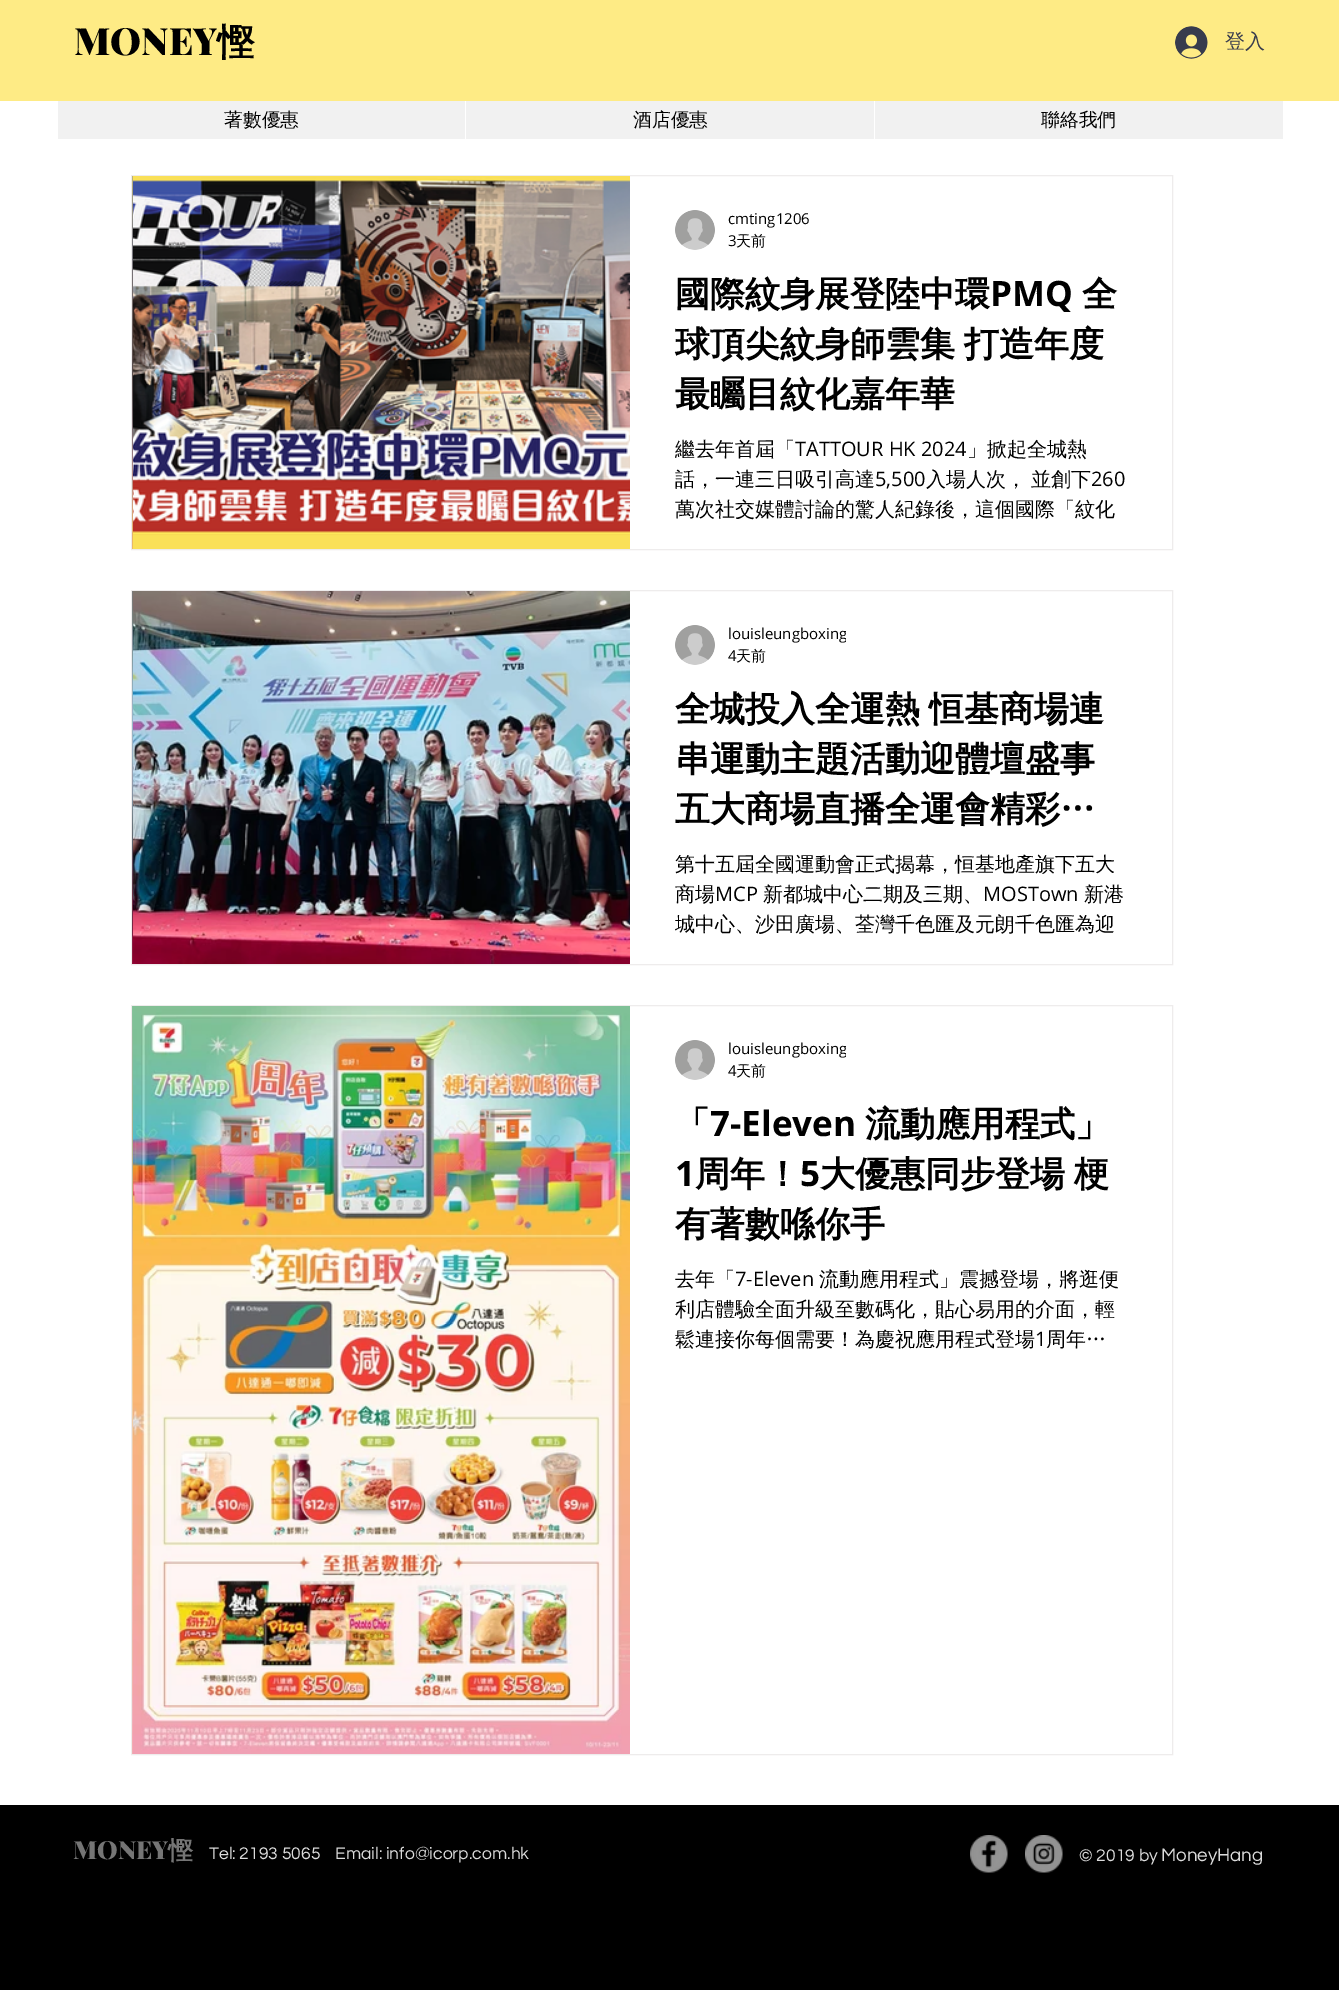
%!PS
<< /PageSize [1339 1990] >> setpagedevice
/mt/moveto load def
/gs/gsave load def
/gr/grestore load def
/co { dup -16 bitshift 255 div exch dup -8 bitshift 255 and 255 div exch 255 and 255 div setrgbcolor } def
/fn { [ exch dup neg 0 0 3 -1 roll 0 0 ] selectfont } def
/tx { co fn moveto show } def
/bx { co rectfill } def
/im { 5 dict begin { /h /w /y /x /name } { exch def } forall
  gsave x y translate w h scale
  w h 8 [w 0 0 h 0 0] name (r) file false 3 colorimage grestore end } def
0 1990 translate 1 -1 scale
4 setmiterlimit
0 0 1339 1990 16#FFFFFF bx
0 0 1339 101 16#FEEB85 bx
(media/1.raw) 1175 26 33 33 im
58 101 1225 38 16#F1F1F1 bx
465 101 1 38 16#FFFFFF bx
874 101 1 38 16#FFFFFF bx
16#EEECEC co
131.5 175.5 1041 374 rectstroke
(media/2.raw) 132 176 1 373 im
(media/3.raw) 133 176 497 373 im
(media/4.raw) 675 210 40 40 im
131.5 590.5 1041 374 rectstroke
(media/5.raw) 132 591 1 373 im
(media/6.raw) 133 591 497 373 im
(media/4.raw) 675 625 40 40 im
131.5 1005.5 1041 749 rectstroke
(media/7.raw) 132 1006 1 748 im
(media/8.raw) 133 1006 497 748 im
(media/4.raw) 675 1040 40 40 im
0 1805 1339 185 16#000000 bx
(media/9.raw) 970 1835 38 38 im
(media/10.raw) 1025 1835 38 38 im
(MONEY) 74 55 /PlayfairDisplay-Black 37.5 16#000000 tx
(慳) 217 55 /WenQuanYiZenHei-Bold 37.5 16#000000 tx
(登入) 1225 48 /WenQuanYiZenHei-Medium 20 16#373B4D tx
(著數優惠) 224 126 /WenQuanYiZenHei-Medium 18.75 16#000000 tx
(酒店優惠) 633 126 /WenQuanYiZenHei-Medium 18.75 16#000000 tx
(聯絡我們) 1041 126 /WenQuanYiZenHei-Medium 18.75 16#000000 tx
(cmting1206) 728 224 /OpenSans-Regular 15 16#000000 tx
(3) 728 246 /OpenSans-Regular 15 16#000000 tx
(天前) 736 246 /WenQuanYiZenHei-Medium 15 16#000000 tx
(國際紋身展登陸中環) 675 306 /WenQuanYiZenHei-Bold 35 16#000000 tx
(PMQ) 990 306 /OpenSans-Bold 35 16#000000 tx
(全) 1082 306 /WenQuanYiZenHei-Bold 35 16#000000 tx
675 356 mt -1 0 32 (球頂尖紋身師雲集 打造年度) widthshow
(最矚目紋化嘉年華) 675 406 /WenQuanYiZenHei-Bold 35 16#000000 tx
(繼去年首屆「) 675 456 /WenQuanYiZenHei-Medium 20 16#000000 tx
(TATTOUR HK 2024) 795 456 /OpenSans-Regular 20 16#000000 tx
(」掀起全城熱) 967 456 /WenQuanYiZenHei-Medium 20 16#000000 tx
(話，一連三日吸引高達) 675 486 /WenQuanYiZenHei-Medium 20 16#000000 tx
(5,500) 875 486 /OpenSans-Regular 20 16#000000 tx
/WenQuanYiZenHei-Medium 20 fn
926 486 mt -1 0 32 (入場人次， 並創下) widthshow
(260) 1091 486 /OpenSans-Regular 20 16#000000 tx
(萬次社交媒體討論的驚人紀錄後，這個國際「紋化) 675 516 /WenQuanYiZenHei-Medium 20 16#000000 tx
gs
728 624 118 20 rectclip
(louisleungboxing) 728 639 /OpenSans-Regular 15 16#000000 tx
gr
(4) 728 661 /OpenSans-Regular 15 16#000000 tx
(天前) 736 661 /WenQuanYiZenHei-Medium 15 16#000000 tx
/WenQuanYiZenHei-Bold 35 fn
675 721 mt -1 0 32 (全城投入全運熱 恒基商場連) widthshow
(串運動主題活動迎體壇盛事) 675 771 /WenQuanYiZenHei-Bold 35 16#000000 tx
(五大商場直播全運會精彩…) 675 821 /WenQuanYiZenHei-Bold 35 16#000000 tx
(第十五屆全國運動會正式揭幕，恒基地產旗下五大) 675 871 /WenQuanYiZenHei-Medium 20 16#000000 tx
(商場) 675 901 /WenQuanYiZenHei-Medium 20 16#000000 tx
(MCP) 715 901 /OpenSans-Regular 20 16#000000 tx
(新都城中心二期及三期、) 763 901 /WenQuanYiZenHei-Medium 20 16#000000 tx
(MOSTown) 983 901 /OpenSans-Regular 20 16#000000 tx
(新港) 1084 901 /WenQuanYiZenHei-Medium 20 16#000000 tx
(城中心、沙田廣場、荃灣千色匯及元朗千色匯為迎) 675 931 /WenQuanYiZenHei-Medium 20 16#000000 tx
gs
728 1039 118 20 rectclip
(louisleungboxing) 728 1054 /OpenSans-Regular 15 16#000000 tx
gr
(4) 728 1076 /OpenSans-Regular 15 16#000000 tx
(天前) 736 1076 /WenQuanYiZenHei-Medium 15 16#000000 tx
(「) 675 1136 /WenQuanYiZenHei-Bold 35 16#000000 tx
(7-Eleven) 710 1136 /OpenSans-Bold 35 16#000000 tx
(流動應用程式」) 865 1136 /WenQuanYiZenHei-Bold 35 16#000000 tx
(1) 675 1186 /OpenSans-Bold 35 16#000000 tx
(周年！) 695 1186 /WenQuanYiZenHei-Bold 35 16#000000 tx
(5) 800 1186 /OpenSans-Bold 35 16#000000 tx
/WenQuanYiZenHei-Bold 35 fn
820 1186 mt -1 0 32 (大優惠同步登場 梗) widthshow
(有著數喺你手) 675 1236 /WenQuanYiZenHei-Bold 35 16#000000 tx
(去年「) 675 1286 /WenQuanYiZenHei-Medium 20 16#000000 tx
(7-Eleven) 735 1286 /OpenSans-Regular 20 16#000000 tx
(流動應用程式」震撼登場，將逛便) 819 1286 /WenQuanYiZenHei-Medium 20 16#000000 tx
(利店體驗全面升級至數碼化，貼心易用的介面，輕) 675 1316 /WenQuanYiZenHei-Medium 20 16#000000 tx
(鬆連接你每個需要！為慶祝應用程式登場) 675 1346 /WenQuanYiZenHei-Medium 20 16#000000 tx
(1) 1035 1346 /OpenSans-Regular 20 16#000000 tx
(周年…) 1046 1346 /WenQuanYiZenHei-Medium 20 16#000000 tx
(MONEY) 73 1859 /PlayfairDisplay-Black 25 16#757575 tx
(慳) 168 1859 /WenQuanYiZenHei-Bold 25 16#757575 tx
(Tel: 2193 5065    Email: info@icorp.com.hk) 209 1859 /Questrial-Regular 17.5 16#DBDBDB tx
(© 2019 by) 1079 1861 /Questrial-Regular 17.5 16#DBDBDB tx
(MoneyHang) 1161 1861 /Questrial-Regular 18.75 16#DBDBDB tx
showpage
